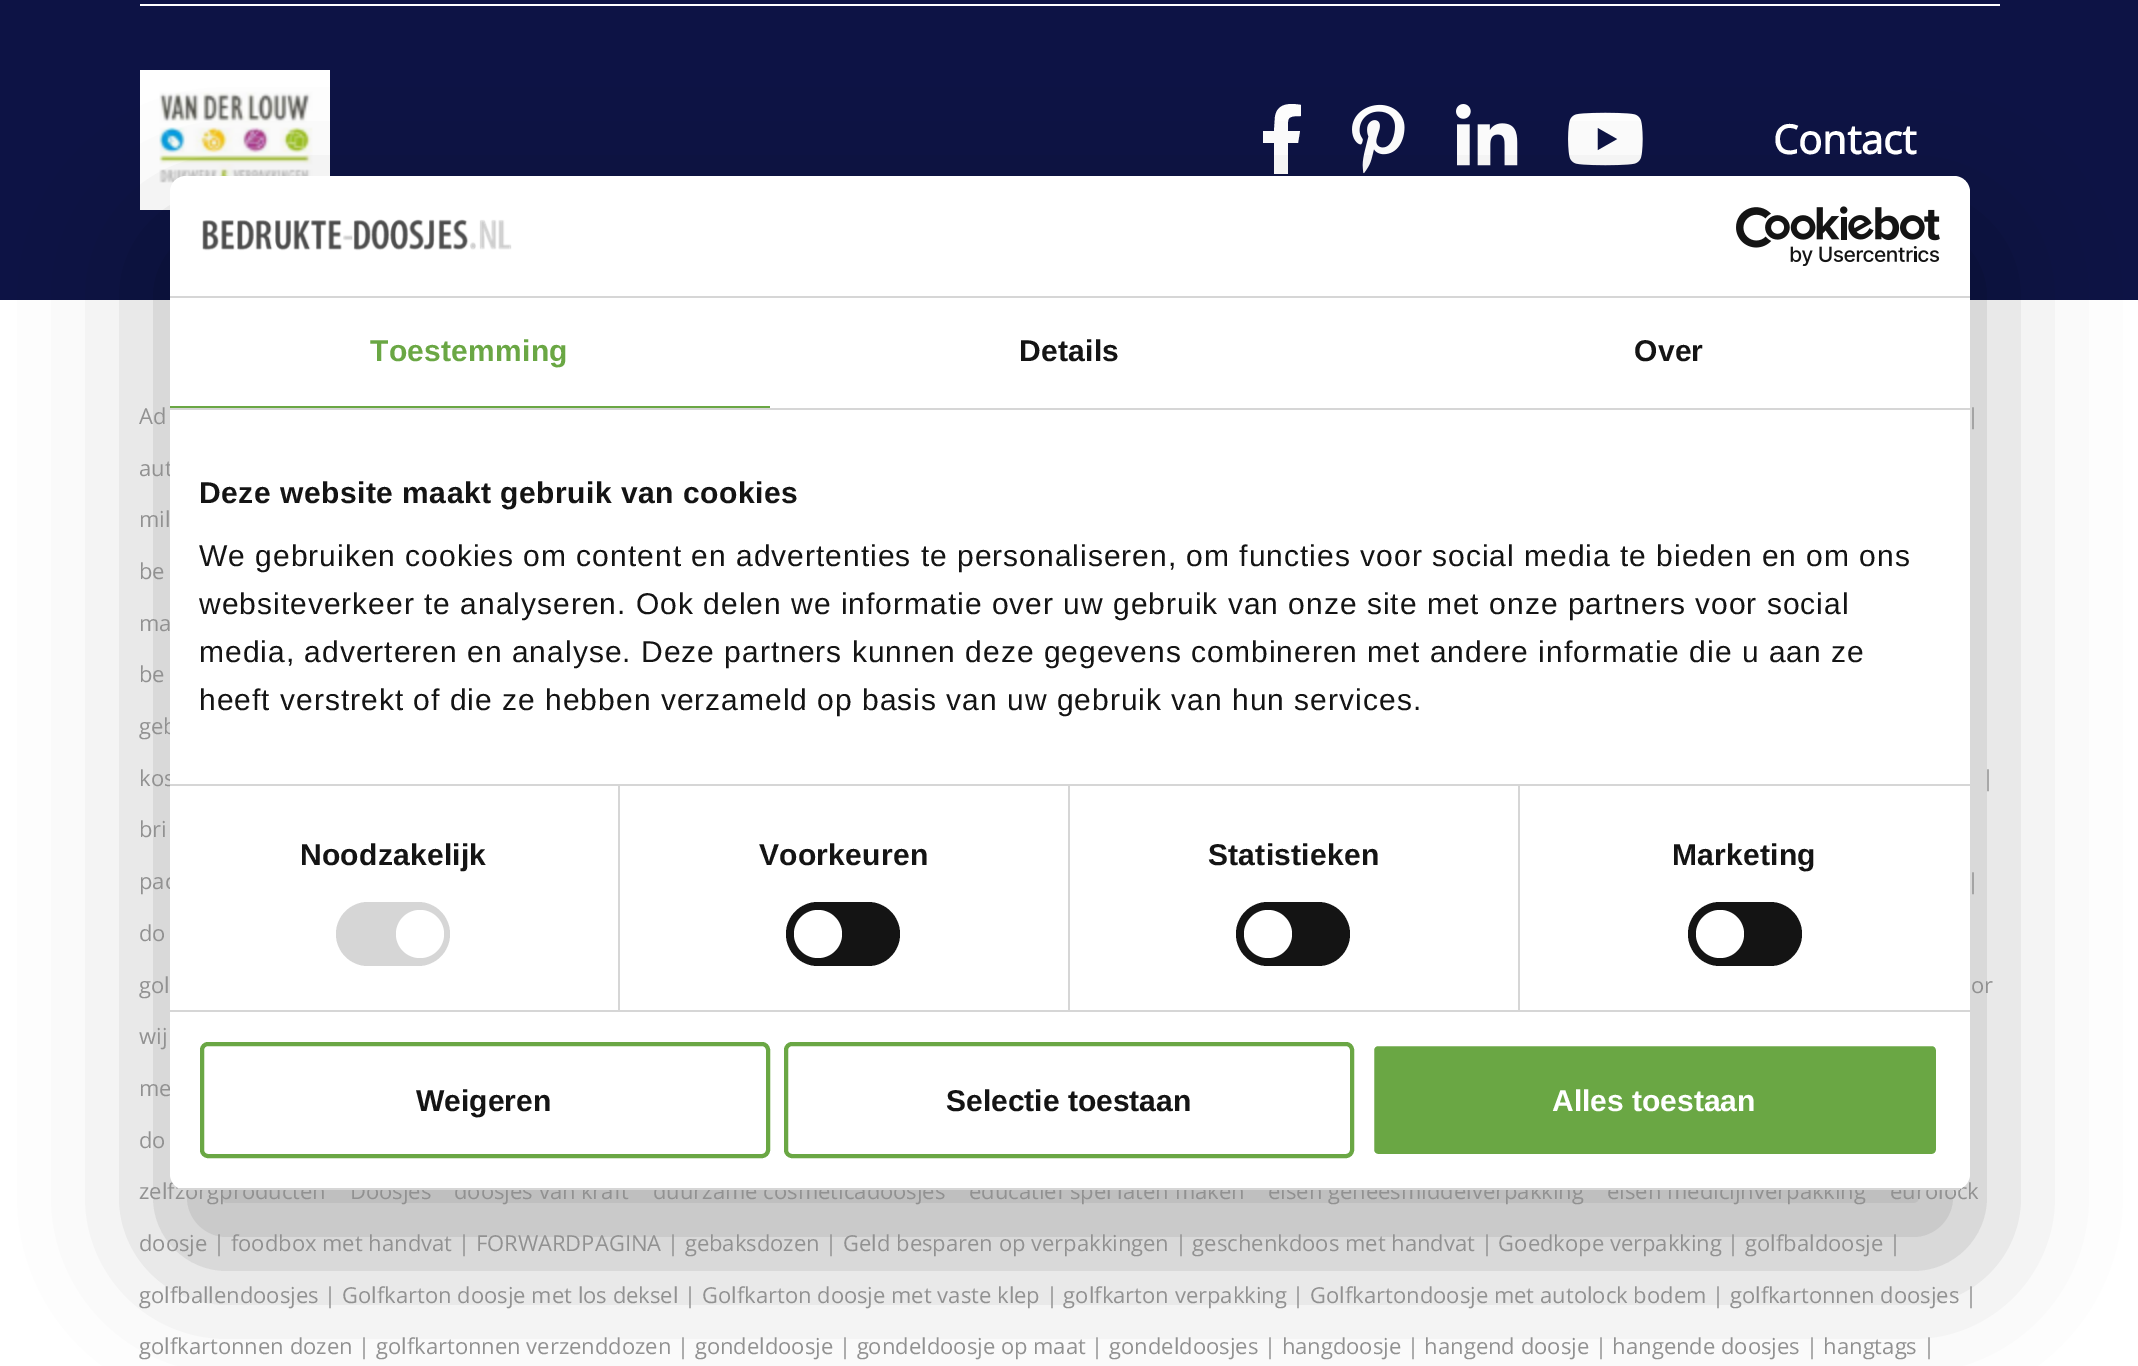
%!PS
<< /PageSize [2138 1366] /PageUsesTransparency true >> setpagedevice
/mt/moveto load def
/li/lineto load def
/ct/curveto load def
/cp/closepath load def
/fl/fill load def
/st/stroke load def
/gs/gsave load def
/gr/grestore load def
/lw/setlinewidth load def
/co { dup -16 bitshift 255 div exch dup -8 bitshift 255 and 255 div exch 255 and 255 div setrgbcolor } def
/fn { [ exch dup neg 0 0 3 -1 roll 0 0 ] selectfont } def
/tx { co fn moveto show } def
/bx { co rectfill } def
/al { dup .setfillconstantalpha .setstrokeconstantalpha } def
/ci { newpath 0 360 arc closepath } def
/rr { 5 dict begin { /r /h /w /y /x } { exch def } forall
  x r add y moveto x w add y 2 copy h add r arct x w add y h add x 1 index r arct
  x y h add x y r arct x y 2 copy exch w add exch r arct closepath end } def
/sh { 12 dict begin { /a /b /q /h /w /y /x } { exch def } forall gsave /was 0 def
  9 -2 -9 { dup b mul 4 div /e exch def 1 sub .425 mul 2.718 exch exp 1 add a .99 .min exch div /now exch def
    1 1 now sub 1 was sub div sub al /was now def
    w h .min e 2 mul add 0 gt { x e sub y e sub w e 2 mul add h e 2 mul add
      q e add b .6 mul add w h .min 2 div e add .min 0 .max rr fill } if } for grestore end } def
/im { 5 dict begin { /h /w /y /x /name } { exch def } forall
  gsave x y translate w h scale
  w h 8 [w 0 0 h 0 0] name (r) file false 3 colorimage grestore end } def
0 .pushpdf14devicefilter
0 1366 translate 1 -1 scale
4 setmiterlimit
0 0 2138 1366 16#FFFFFF bx
0 0 2138 300 16#0D1345 bx
140 4 1860 2 16#FFFFFF bx
(media/1.raw) 140 70 190 140 im
1298 143 mt 1300 131 li 1288 131 li 1288 118 1286 116 1301 116 ct 1301 105 li 1290 103 1277 103 1275 117 ct 1274 131 li 1263 131 li 1263 143 li 1274 143 li 1274 174 li 1288 174 li 1288 143 li cp fl
(media/2.raw) 1352 104 53 70 im
(media/3.raw) 1456 104 62 62 im
(media/4.raw) 1568 112 75 54 im
16#000000 co
170 240 1800 1014 16 68 .3 sh
(Contact) 1773 154 /OpenSans-Bold 40 16#FFFFFF tx
(Ad) 139 424 /OpenSans-Regular 22 16#919191 tx
(|) 1967 424 /OpenSans-Regular 22 16#919191 tx
(aut) 139 476 /OpenSans-Regular 22 16#919191 tx
(mil) 139 527 /OpenSans-Regular 22 16#919191 tx
(be) 139 579 /OpenSans-Regular 22 16#919191 tx
(ma) 139 631 /OpenSans-Regular 22 16#919191 tx
(be) 139 682 /OpenSans-Regular 22 16#919191 tx
(geb) 139 734 /OpenSans-Regular 22 16#919191 tx
(kos) 139 786 /OpenSans-Regular 22 16#919191 tx
(|) 1982 786 /OpenSans-Regular 22 16#919191 tx
(bri) 139 837 /OpenSans-Regular 22 16#919191 tx
(pac) 139 889 /OpenSans-Regular 22 16#919191 tx
(|) 1967 889 /OpenSans-Regular 22 16#919191 tx
(do) 139 941 /OpenSans-Regular 22 16#919191 tx
(gol) 139 993 /OpenSans-Regular 22 16#919191 tx
(or) 1971 993 /OpenSans-Regular 22 16#919191 tx
(wij) 139 1044 /OpenSans-Regular 22 16#919191 tx
(me) 139 1096 /OpenSans-Regular 22 16#919191 tx
(do) 139 1148 /OpenSans-Regular 22 16#919191 tx
(zelfzorgproducten) 139 1199 /OpenSans-Regular 22 16#919191 tx
(Doosjes) 350 1199 /OpenSans-Regular 22 16#919191 tx
(doosjes van kraft) 454 1199 /OpenSans-Regular 22 16#919191 tx
(duurzame cosmeticadoosjes) 653 1199 /OpenSans-Regular 22 16#919191 tx
(educatief spel laten maken) 969 1199 /OpenSans-Regular 22 16#919191 tx
(eisen geneesmiddelverpakking) 1268 1199 /OpenSans-Regular 22 16#919191 tx
(eisen medicijnverpakking) 1607 1199 /OpenSans-Regular 22 16#919191 tx
(eurolock) 1890 1199 /OpenSans-Regular 22 16#919191 tx
(doosje | foodbox met handvat | FORWARDPAGINA | gebaksdozen | Geld besparen op verpakkingen | geschenkdoos met handvat | Goedkope verpakking | golfbaldoosje |) 139 1251 /OpenSans-Regular 22 16#919191 tx
(golfballendoosjes | Golfkarton doosje met los deksel | Golfkarton doosje met vaste klep | golfkarton verpakking | Golfkartondoosje met autolock bodem | golfkartonnen doosjes |) 139 1303 /OpenSans-Regular 22 16#919191 tx
(golfkartonnen dozen | golfkartonnen verzenddozen | gondeldoosje | gondeldoosje op maat | gondeldoosjes | hangdoosje | hangend doosje | hangende doosjes | hangtags |) 139 1354 /OpenSans-Regular 22 16#919191 tx
16#FFFFFF co
170 176 1800 1014 16 rr fl
170 296 1800 2 16#D6D6D6 bx
(media/5.raw) 202 219 310 32 im
(media/6.raw) 1736 206 204 60 im
170 408 1800 2 16#D6D6D6 bx
170 406 600 2 16#6AA744 bx
/LiberationSans-Bold 30 fn
370 361 mt .25 0 (Toestemming) ashow
16#141414 co
1019 361 mt .25 0 (Details) ashow
1634 361 mt .25 0 (Over) ashow
170 784 1800 2 16#D6D6D6 bx
16#141414 co
199 503 mt .5 0 (Deze website maakt gebruik van cookies) ashow
/LiberationSans-Regular 30 fn
199 566 mt 1 0 (We gebruiken cookies om content en advertenties te personaliseren, om functies voor social media te bieden en om ons) ashow
199 614 mt 1 0 (websiteverkeer te analyseren. Ook delen we informatie over uw gebruik van onze site met onze partners voor social) ashow
199 662 mt 1 0 (media, adverteren en analyse. Deze partners kunnen deze gegevens combineren met andere informatie die u aan ze) ashow
199 710 mt 1 0 (heeft verstrekt of die ze hebben verzameld op basis van uw gebruik van hun services.) ashow
170 1010 1800 2 16#D6D6D6 bx
618 786 2 224 16#D6D6D6 bx
/LiberationSans-Bold 30 fn
16#141414 co
300 865 mt .25 0 (Noodzakelijk) ashow
16#D6D6D6 co
336 902 114 64 32 rr fl
16#FFFFFF co
420 934 24 ci fl
1068 786 2 224 16#D6D6D6 bx
16#141414 co
759 865 mt .25 0 (Voorkeuren) ashow
786 902 114 64 32 rr fl
16#FFFFFF co
818 934 24 ci fl
1518 786 2 224 16#D6D6D6 bx
16#141414 co
1208 865 mt .25 0 (Statistieken) ashow
1236 902 114 64 32 rr fl
16#FFFFFF co
1268 934 24 ci fl
16#141414 co
1672 865 mt .25 0 (Marketing) ashow
1688 902 114 64 32 rr fl
16#FFFFFF co
1720 934 24 ci fl
gs
170 176 1800 1014 16 rr clip newpath
170 1188 1800 2 16#D6D6D6 bx
gr
16#6AA744 co
4 lw
202 1044 566 112 6 rr st
(Weigeren) 416 1111 /LiberationSans-Bold 30 16#141414 tx
16#6AA744 co
786 1044 566 112 6 rr st
(Selectie toestaan) 946 1111 /LiberationSans-Bold 30 16#141414 tx
16#6AA744 co
1372 1044 566 112 6 rr gs fl gr
16#FFFFFF co
st
(Alles toestaan) 1552 1111 /LiberationSans-Bold 30 16#FFFFFF tx
.poppdf14devicefilter showpage
